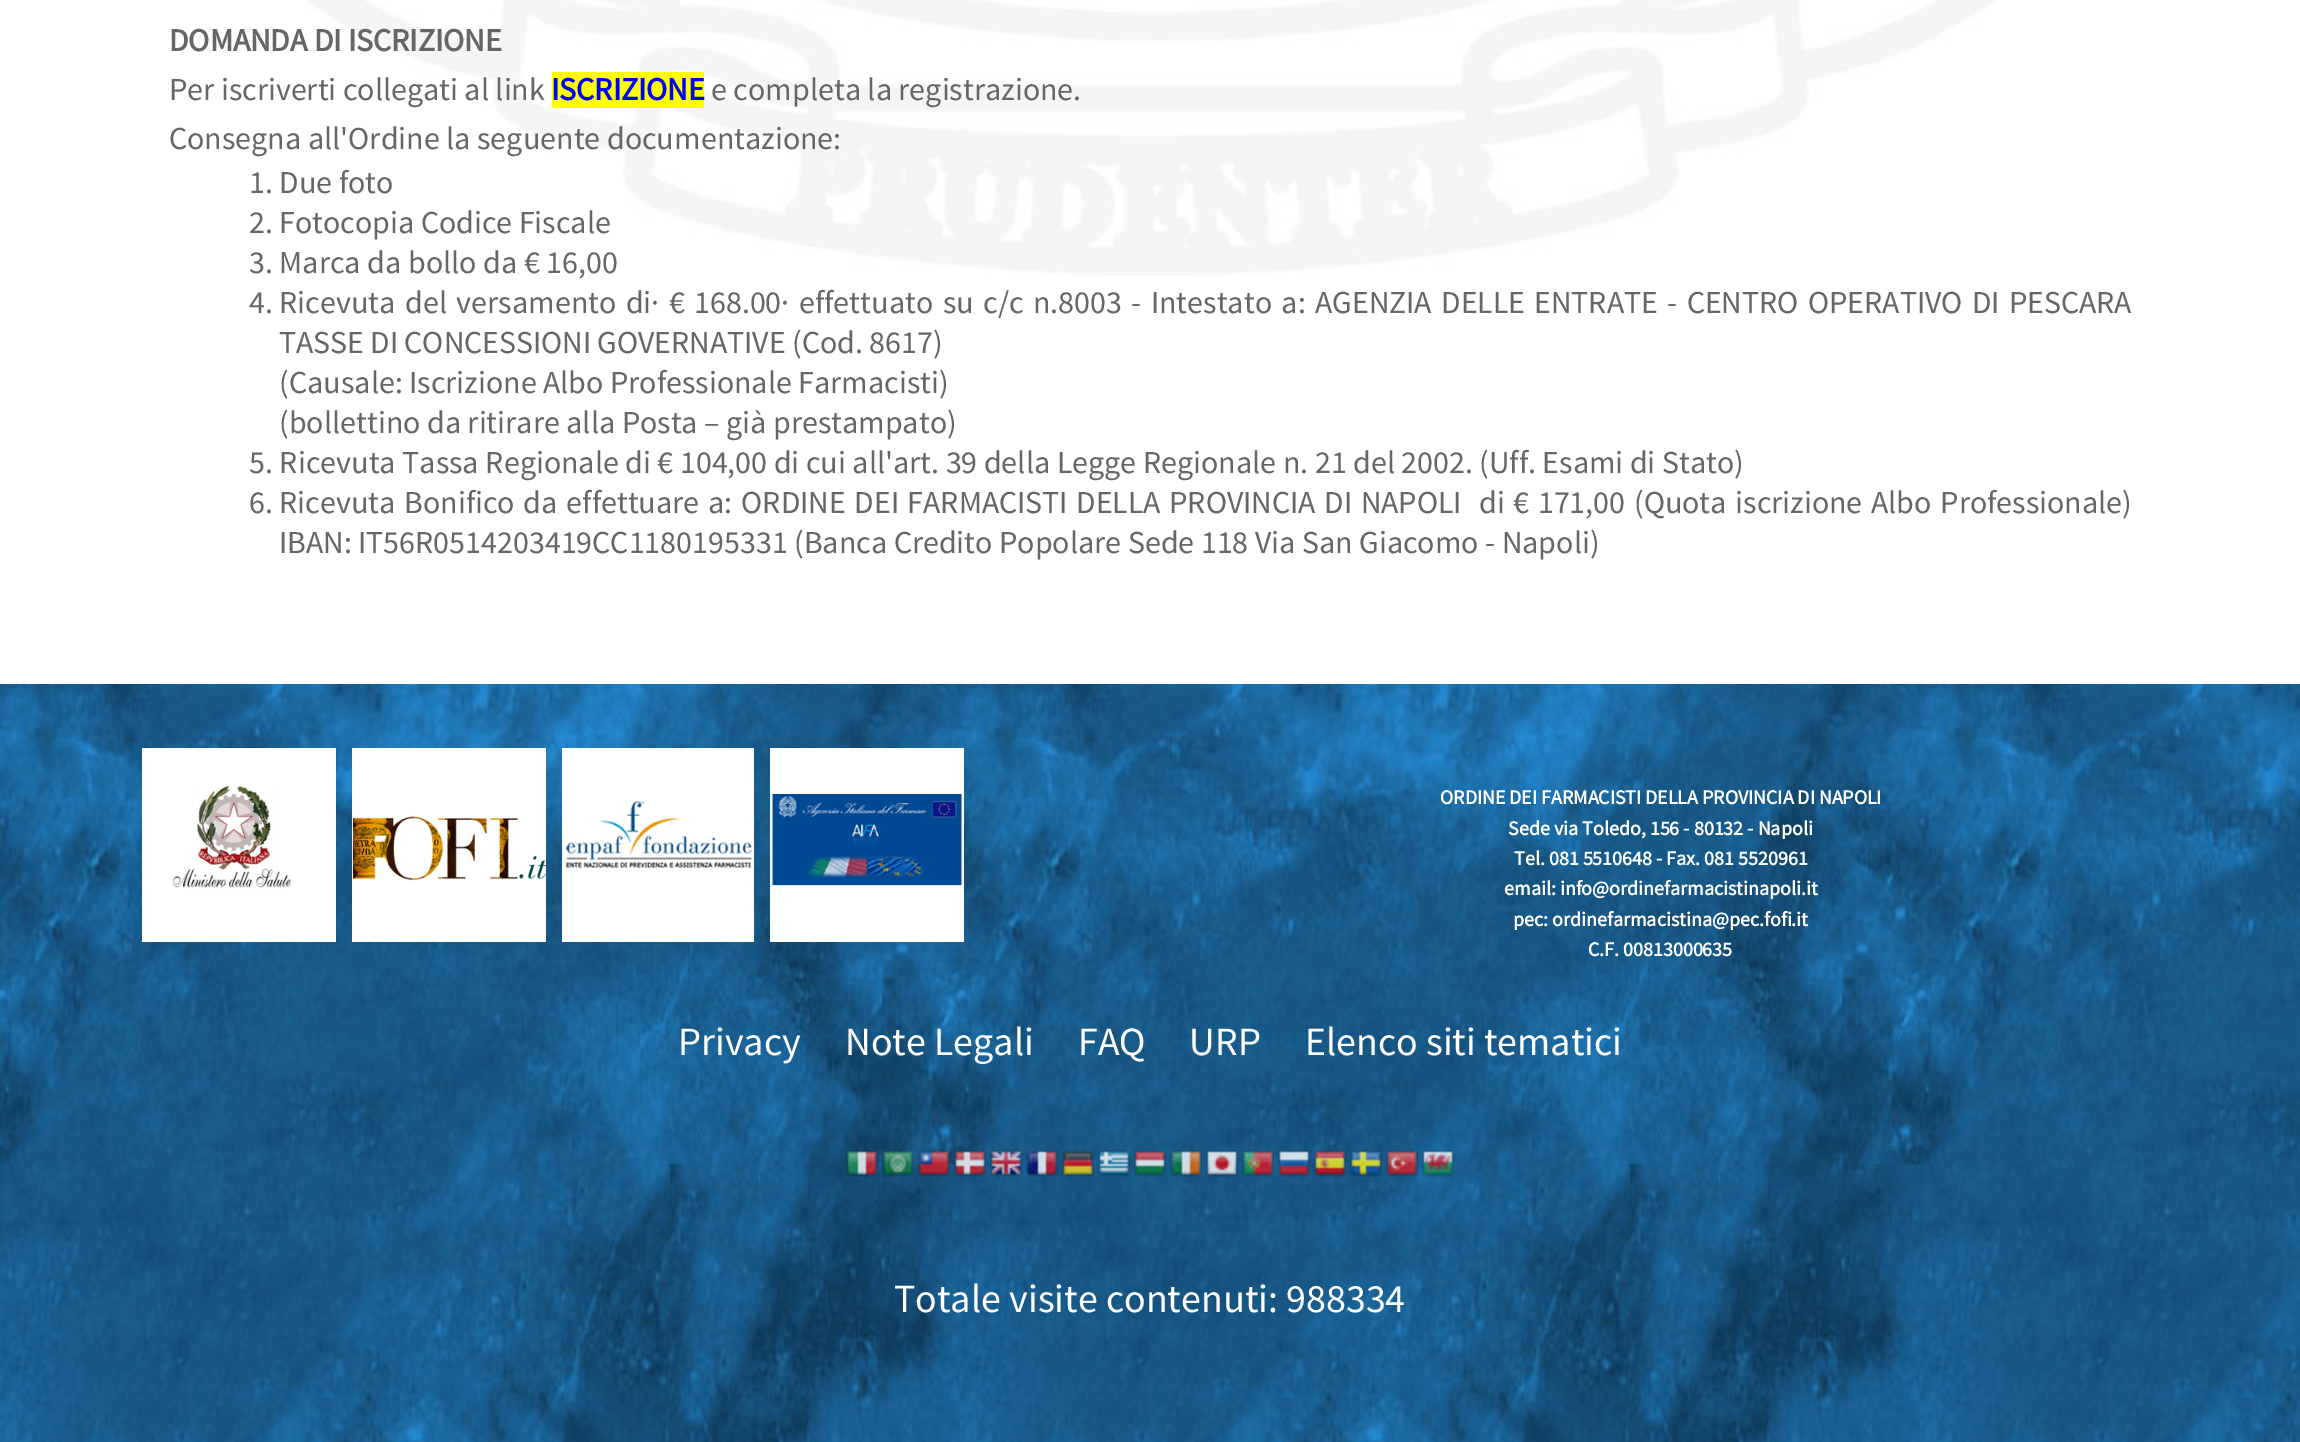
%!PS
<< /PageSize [2300 1442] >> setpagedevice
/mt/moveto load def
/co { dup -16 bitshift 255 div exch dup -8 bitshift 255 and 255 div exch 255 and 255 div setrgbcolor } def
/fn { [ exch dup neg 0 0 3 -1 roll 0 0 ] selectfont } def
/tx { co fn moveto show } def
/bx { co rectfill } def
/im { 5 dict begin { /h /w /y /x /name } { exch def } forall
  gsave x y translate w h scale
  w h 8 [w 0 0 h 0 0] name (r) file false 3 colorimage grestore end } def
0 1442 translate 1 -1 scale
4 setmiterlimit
0 0 2300 1442 16#FFFFFF bx
(media/1.raw) 305 0 1691 276 im
552 72 152 36 16#FFFF00 bx
(media/2.raw) 0 684 2300 758 im
(media/3.raw) 142 748 194 194 im
(media/4.raw) 352 748 194 194 im
(media/5.raw) 562 748 192 194 im
(media/6.raw) 770 748 194 194 im
(media/7.raw) 846 1150 32 27 im
(media/8.raw) 882 1150 32 27 im
(media/9.raw) 918 1150 32 27 im
(media/10.raw) 954 1150 32 27 im
(media/11.raw) 990 1150 32 27 im
(media/12.raw) 1026 1150 32 27 im
(media/13.raw) 1062 1150 32 27 im
(media/14.raw) 1098 1150 32 27 im
(media/15.raw) 1134 1150 32 27 im
(media/16.raw) 1170 1150 32 27 im
(media/17.raw) 1206 1150 32 27 im
(media/18.raw) 1242 1150 32 27 im
(media/19.raw) 1278 1150 32 27 im
(media/20.raw) 1314 1150 32 27 im
(media/21.raw) 1350 1150 32 27 im
(media/22.raw) 1386 1150 32 27 im
(media/23.raw) 1422 1150 32 28 im
(DOMANDA DI ISCRIZIONE) 169 51 /SourceSansPro-Bold 32 16#666666 tx
(Per iscriverti collegati al link) 169 100 /SourceSansPro-Regular 32 16#666666 tx
(ISCRIZIONE) 551 100 /SourceSansPro-Bold 32 16#0000FF tx
(e completa la registrazione.) 711 100 /SourceSansPro-Regular 32 16#666666 tx
(Consegna all'Ordine la seguente documentazione:) 169 149 /SourceSansPro-Regular 32 16#666666 tx
(1. Due foto) 249 193 /SourceSansPro-Regular 32 16#666666 tx
(2. Fotocopia Codice Fiscale) 249 233 /SourceSansPro-Regular 32 16#666666 tx
(3. Marca da bollo da € 16,00) 249 273 /SourceSansPro-Regular 32 16#666666 tx
(4.) 249 313 /SourceSansPro-Regular 32 16#666666 tx
279 313 mt 3 0 32 (Ricevuta del versamento di· € 168.00· effettuato su c/c n.8003 - Intestato a: AGENZIA DELLE ENTRATE - CENTRO OPERATIVO DI PESCARA) widthshow
(TASSE DI CONCESSIONI GOVERNATIVE \(Cod. 8617\)) 279 353 /SourceSansPro-Regular 32 16#666666 tx
(\(Causale: Iscrizione Albo Professionale Farmacisti\)) 279 393 /SourceSansPro-Regular 32 16#666666 tx
(\(bollettino da ritirare alla Posta – già prestampato\)) 279 433 /SourceSansPro-Regular 32 16#666666 tx
(5. Ricevuta Tassa Regionale di € 104,00 di cui all'art. 39 della Legge Regionale n. 21 del 2002. \(Uff. Esami di Stato\)) 249 473 /SourceSansPro-Regular 32 16#666666 tx
(6.) 249 513 /SourceSansPro-Regular 32 16#666666 tx
279 513 mt 2.25 0 32 (Ricevuta Bonifico da effettuare a: ORDINE DEI FARMACISTI DELLA PROVINCIA DI NAPOLI  di € 171,00 \(Quota iscrizione Albo Professionale\)) widthshow
(IBAN: IT56R0514203419CC1180195331 \(Banca Credito Popolare Sede 118 Via San Giacomo - Napoli\)) 279 553 /SourceSansPro-Regular 32 16#666666 tx
(ORDINE DEI FARMACISTI DELLA PROVINCIA DI NAPOLI) 1440 804 /SourceSansPro-Bold 20 16#FFFFFF tx
(Sede via Toledo, 156 - 80132 - Napoli) 1508 835 /SourceSansPro-Bold 20 16#FFFFFF tx
(Tel. 081 5510648 - Fax. 081 5520961) 1514 865 /SourceSansPro-Bold 20 16#FFFFFF tx
(email: info@ordinefarmacistinapoli.it) 1504 895 /SourceSansPro-Bold 20 16#FFFFFF tx
(pec: ordinefarmacistina@pec.fofi.it) 1513 926 /SourceSansPro-Bold 20 16#FFFFFF tx
(C.F. 00813000635) 1588 956 /SourceSansPro-Bold 20 16#FFFFFF tx
(Privacy) 678 1055 /SourceSansPro-Regular 40 16#FFFFFF tx
(Note Legali) 845 1055 /SourceSansPro-Regular 40 16#FFFFFF tx
(FAQ) 1078 1055 /SourceSansPro-Regular 40 16#FFFFFF tx
(URP) 1189 1055 /SourceSansPro-Regular 40 16#FFFFFF tx
(Elenco siti tematici) 1305 1055 /SourceSansPro-Regular 40 16#FFFFFF tx
(Totale visite contenuti: 988334) 894 1312 /SourceSansPro-Regular 40 16#FFFFFF tx
showpage
